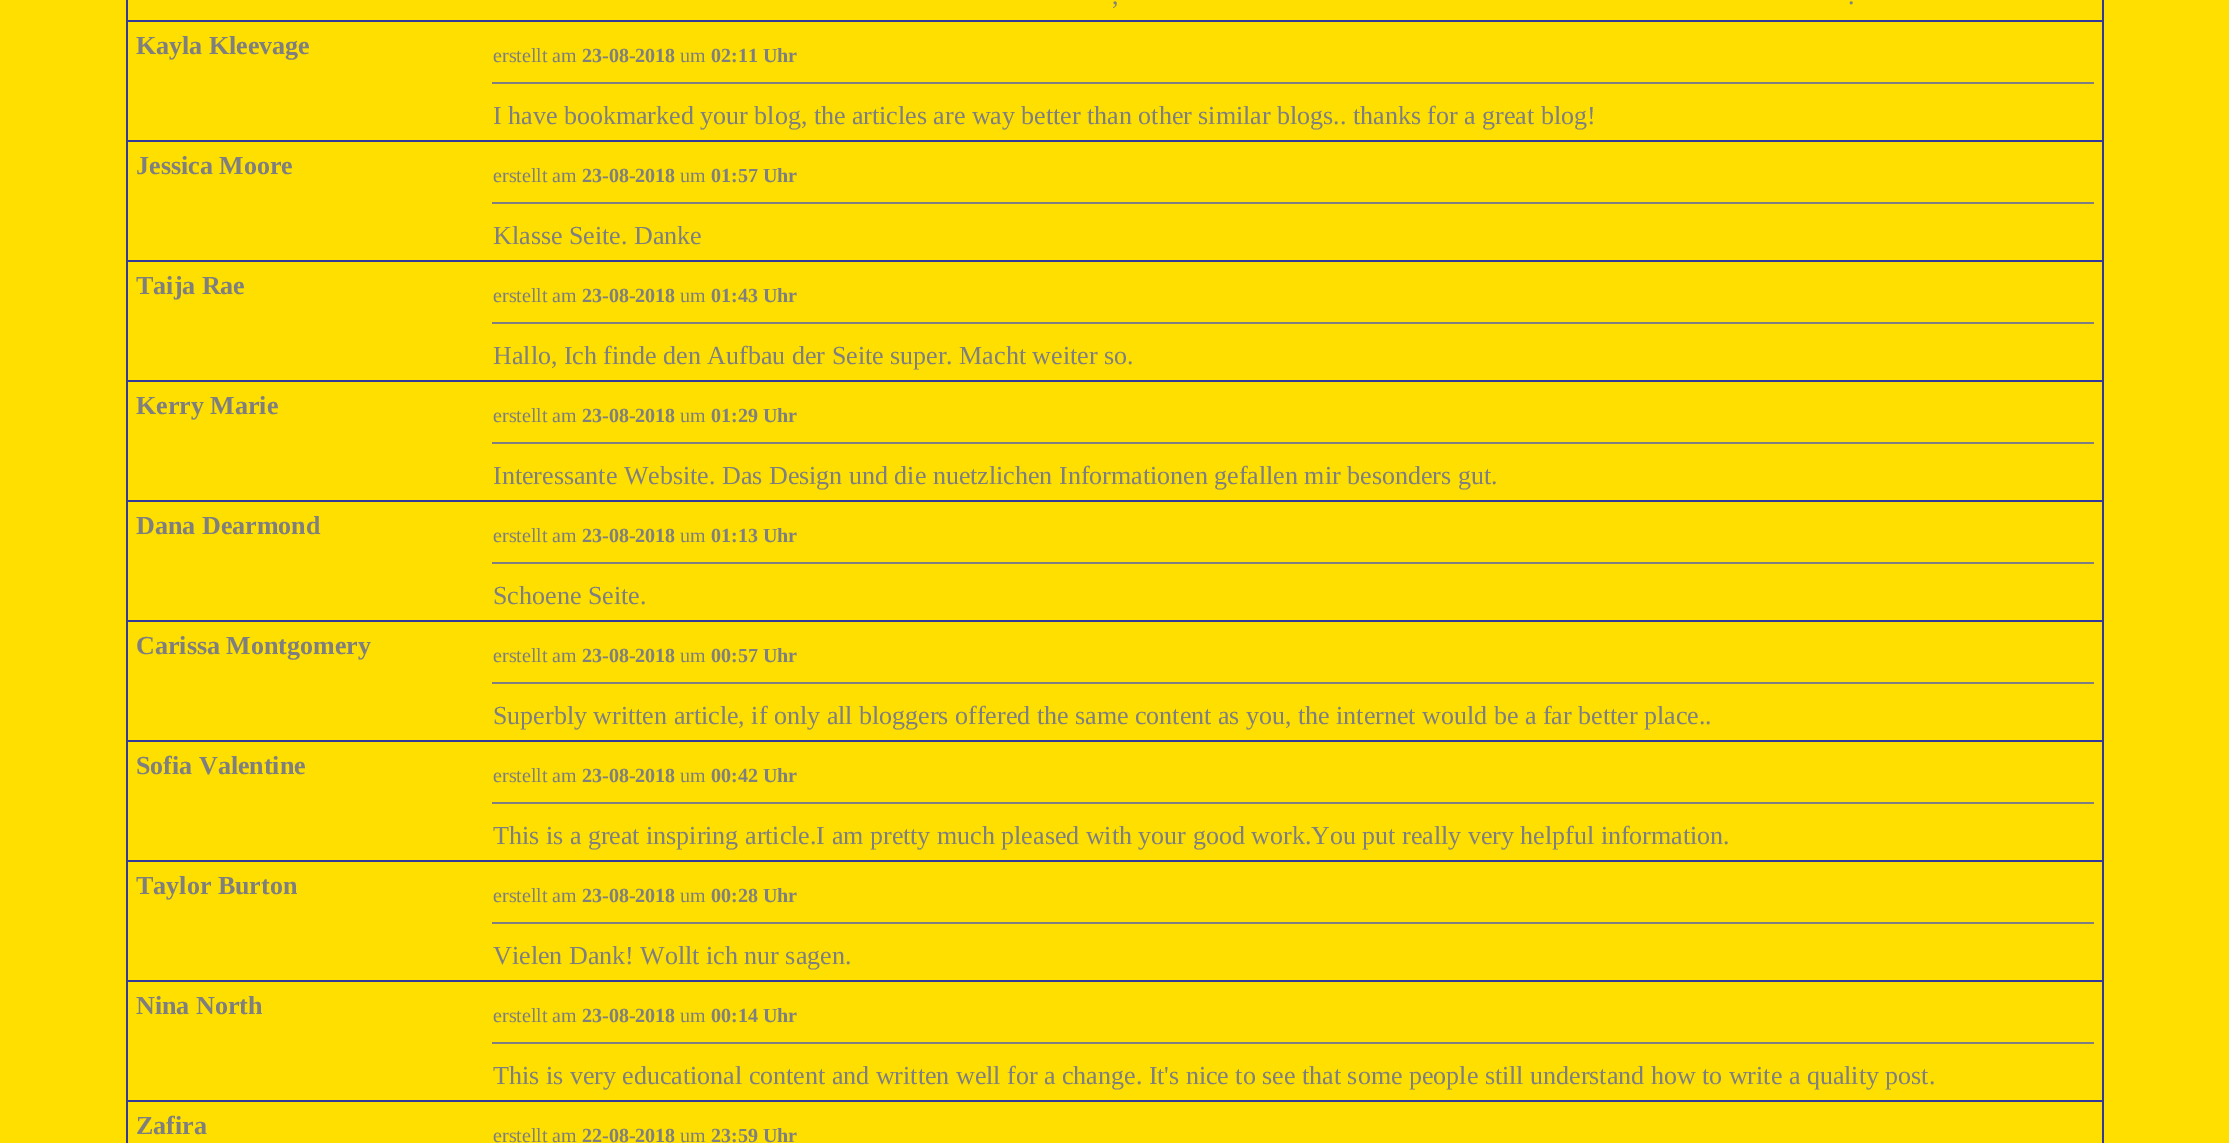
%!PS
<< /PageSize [2229 1143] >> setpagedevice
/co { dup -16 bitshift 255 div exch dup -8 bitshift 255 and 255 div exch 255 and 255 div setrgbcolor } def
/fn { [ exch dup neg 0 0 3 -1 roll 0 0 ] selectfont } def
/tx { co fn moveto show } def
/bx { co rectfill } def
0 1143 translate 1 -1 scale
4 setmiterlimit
0 0 2229 1143 16#FFDF00 bx
126 0 1978 1143 16#333999 bx
128 0 1974 20 16#FFDF00 bx
128 22 1974 118 16#FFDF00 bx
492 82 1602 2 16#808080 bx
128 142 1974 118 16#FFDF00 bx
492 202 1602 2 16#808080 bx
128 262 1974 118 16#FFDF00 bx
492 322 1602 2 16#808080 bx
128 382 1974 118 16#FFDF00 bx
492 442 1602 2 16#808080 bx
128 502 1974 118 16#FFDF00 bx
492 562 1602 2 16#808080 bx
128 622 1974 118 16#FFDF00 bx
492 682 1602 2 16#808080 bx
128 742 1974 118 16#FFDF00 bx
492 802 1602 2 16#808080 bx
128 862 1974 118 16#FFDF00 bx
492 922 1602 2 16#808080 bx
128 982 1974 118 16#FFDF00 bx
492 1042 1602 2 16#808080 bx
128 1102 1974 41 16#FFDF00 bx
(,) 1112 4 /LiberationSerif-Regular 26 16#7F7F7F tx
(.) 1848 4 /LiberationSerif-Regular 26 16#7F7F7F tx
(Kayla Kleevage) 136 54 /LiberationSerif-Bold 26 16#7F7F7F tx
(erstellt am) 493 62 /LiberationSerif-Regular 20 16#7F7F7F tx
(23-08-2018) 582 62 /LiberationSerif-Bold 20 16#7F7F7F tx
(um) 680 62 /LiberationSerif-Regular 20 16#7F7F7F tx
(02:11 Uhr) 711 62 /LiberationSerif-Bold 20 16#7F7F7F tx
(I have bookmarked your blog, the articles are way better than other similar blogs.. thanks for a great blog!) 493 124 /LiberationSerif-Regular 26 16#7F7F7F tx
(Jessica Moore) 136 174 /LiberationSerif-Bold 26 16#7F7F7F tx
(erstellt am) 493 182 /LiberationSerif-Regular 20 16#7F7F7F tx
(23-08-2018) 582 182 /LiberationSerif-Bold 20 16#7F7F7F tx
(um) 680 182 /LiberationSerif-Regular 20 16#7F7F7F tx
(01:57 Uhr) 711 182 /LiberationSerif-Bold 20 16#7F7F7F tx
(Klasse Seite. Danke) 493 244 /LiberationSerif-Regular 26 16#7F7F7F tx
(Taija Rae) 136 294 /LiberationSerif-Bold 26 16#7F7F7F tx
(erstellt am) 493 302 /LiberationSerif-Regular 20 16#7F7F7F tx
(23-08-2018) 582 302 /LiberationSerif-Bold 20 16#7F7F7F tx
(um) 680 302 /LiberationSerif-Regular 20 16#7F7F7F tx
(01:43 Uhr) 711 302 /LiberationSerif-Bold 20 16#7F7F7F tx
(Hallo, Ich finde den Aufbau der Seite super. Macht weiter so.) 493 364 /LiberationSerif-Regular 26 16#7F7F7F tx
(Kerry Marie) 136 414 /LiberationSerif-Bold 26 16#7F7F7F tx
(erstellt am) 493 422 /LiberationSerif-Regular 20 16#7F7F7F tx
(23-08-2018) 582 422 /LiberationSerif-Bold 20 16#7F7F7F tx
(um) 680 422 /LiberationSerif-Regular 20 16#7F7F7F tx
(01:29 Uhr) 711 422 /LiberationSerif-Bold 20 16#7F7F7F tx
(Interessante Website. Das Design und die nuetzlichen Informationen gefallen mir besonders gut.) 493 484 /LiberationSerif-Regular 26 16#7F7F7F tx
(Dana Dearmond) 136 534 /LiberationSerif-Bold 26 16#7F7F7F tx
(erstellt am) 493 542 /LiberationSerif-Regular 20 16#7F7F7F tx
(23-08-2018) 582 542 /LiberationSerif-Bold 20 16#7F7F7F tx
(um) 680 542 /LiberationSerif-Regular 20 16#7F7F7F tx
(01:13 Uhr) 711 542 /LiberationSerif-Bold 20 16#7F7F7F tx
(Schoene Seite.) 493 604 /LiberationSerif-Regular 26 16#7F7F7F tx
(Carissa Montgomery) 136 654 /LiberationSerif-Bold 26 16#7F7F7F tx
(erstellt am) 493 662 /LiberationSerif-Regular 20 16#7F7F7F tx
(23-08-2018) 582 662 /LiberationSerif-Bold 20 16#7F7F7F tx
(um) 680 662 /LiberationSerif-Regular 20 16#7F7F7F tx
(00:57 Uhr) 711 662 /LiberationSerif-Bold 20 16#7F7F7F tx
(Superbly written article, if only all bloggers offered the same content as you, the internet would be a far better place..) 493 724 /LiberationSerif-Regular 26 16#7F7F7F tx
(Sofia Valentine) 136 774 /LiberationSerif-Bold 26 16#7F7F7F tx
(erstellt am) 493 782 /LiberationSerif-Regular 20 16#7F7F7F tx
(23-08-2018) 582 782 /LiberationSerif-Bold 20 16#7F7F7F tx
(um) 680 782 /LiberationSerif-Regular 20 16#7F7F7F tx
(00:42 Uhr) 711 782 /LiberationSerif-Bold 20 16#7F7F7F tx
(This is a great inspiring article.I am pretty much pleased with your good work.You put really very helpful information.) 493 844 /LiberationSerif-Regular 26 16#7F7F7F tx
(Taylor Burton) 136 894 /LiberationSerif-Bold 26 16#7F7F7F tx
(erstellt am) 493 902 /LiberationSerif-Regular 20 16#7F7F7F tx
(23-08-2018) 582 902 /LiberationSerif-Bold 20 16#7F7F7F tx
(um) 680 902 /LiberationSerif-Regular 20 16#7F7F7F tx
(00:28 Uhr) 711 902 /LiberationSerif-Bold 20 16#7F7F7F tx
(Vielen Dank! Wollt ich nur sagen.) 493 964 /LiberationSerif-Regular 26 16#7F7F7F tx
(Nina North) 136 1014 /LiberationSerif-Bold 26 16#7F7F7F tx
(erstellt am) 493 1022 /LiberationSerif-Regular 20 16#7F7F7F tx
(23-08-2018) 582 1022 /LiberationSerif-Bold 20 16#7F7F7F tx
(um) 680 1022 /LiberationSerif-Regular 20 16#7F7F7F tx
(00:14 Uhr) 711 1022 /LiberationSerif-Bold 20 16#7F7F7F tx
(This is very educational content and written well for a change. It's nice to see that some people still understand how to write a quality post.) 493 1084 /LiberationSerif-Regular 26 16#7F7F7F tx
(Zafira) 136 1134 /LiberationSerif-Bold 26 16#7F7F7F tx
(erstellt am) 493 1142 /LiberationSerif-Regular 20 16#7F7F7F tx
(22-08-2018) 582 1142 /LiberationSerif-Bold 20 16#7F7F7F tx
(um) 680 1142 /LiberationSerif-Regular 20 16#7F7F7F tx
(23:59 Uhr) 711 1142 /LiberationSerif-Bold 20 16#7F7F7F tx
showpage
